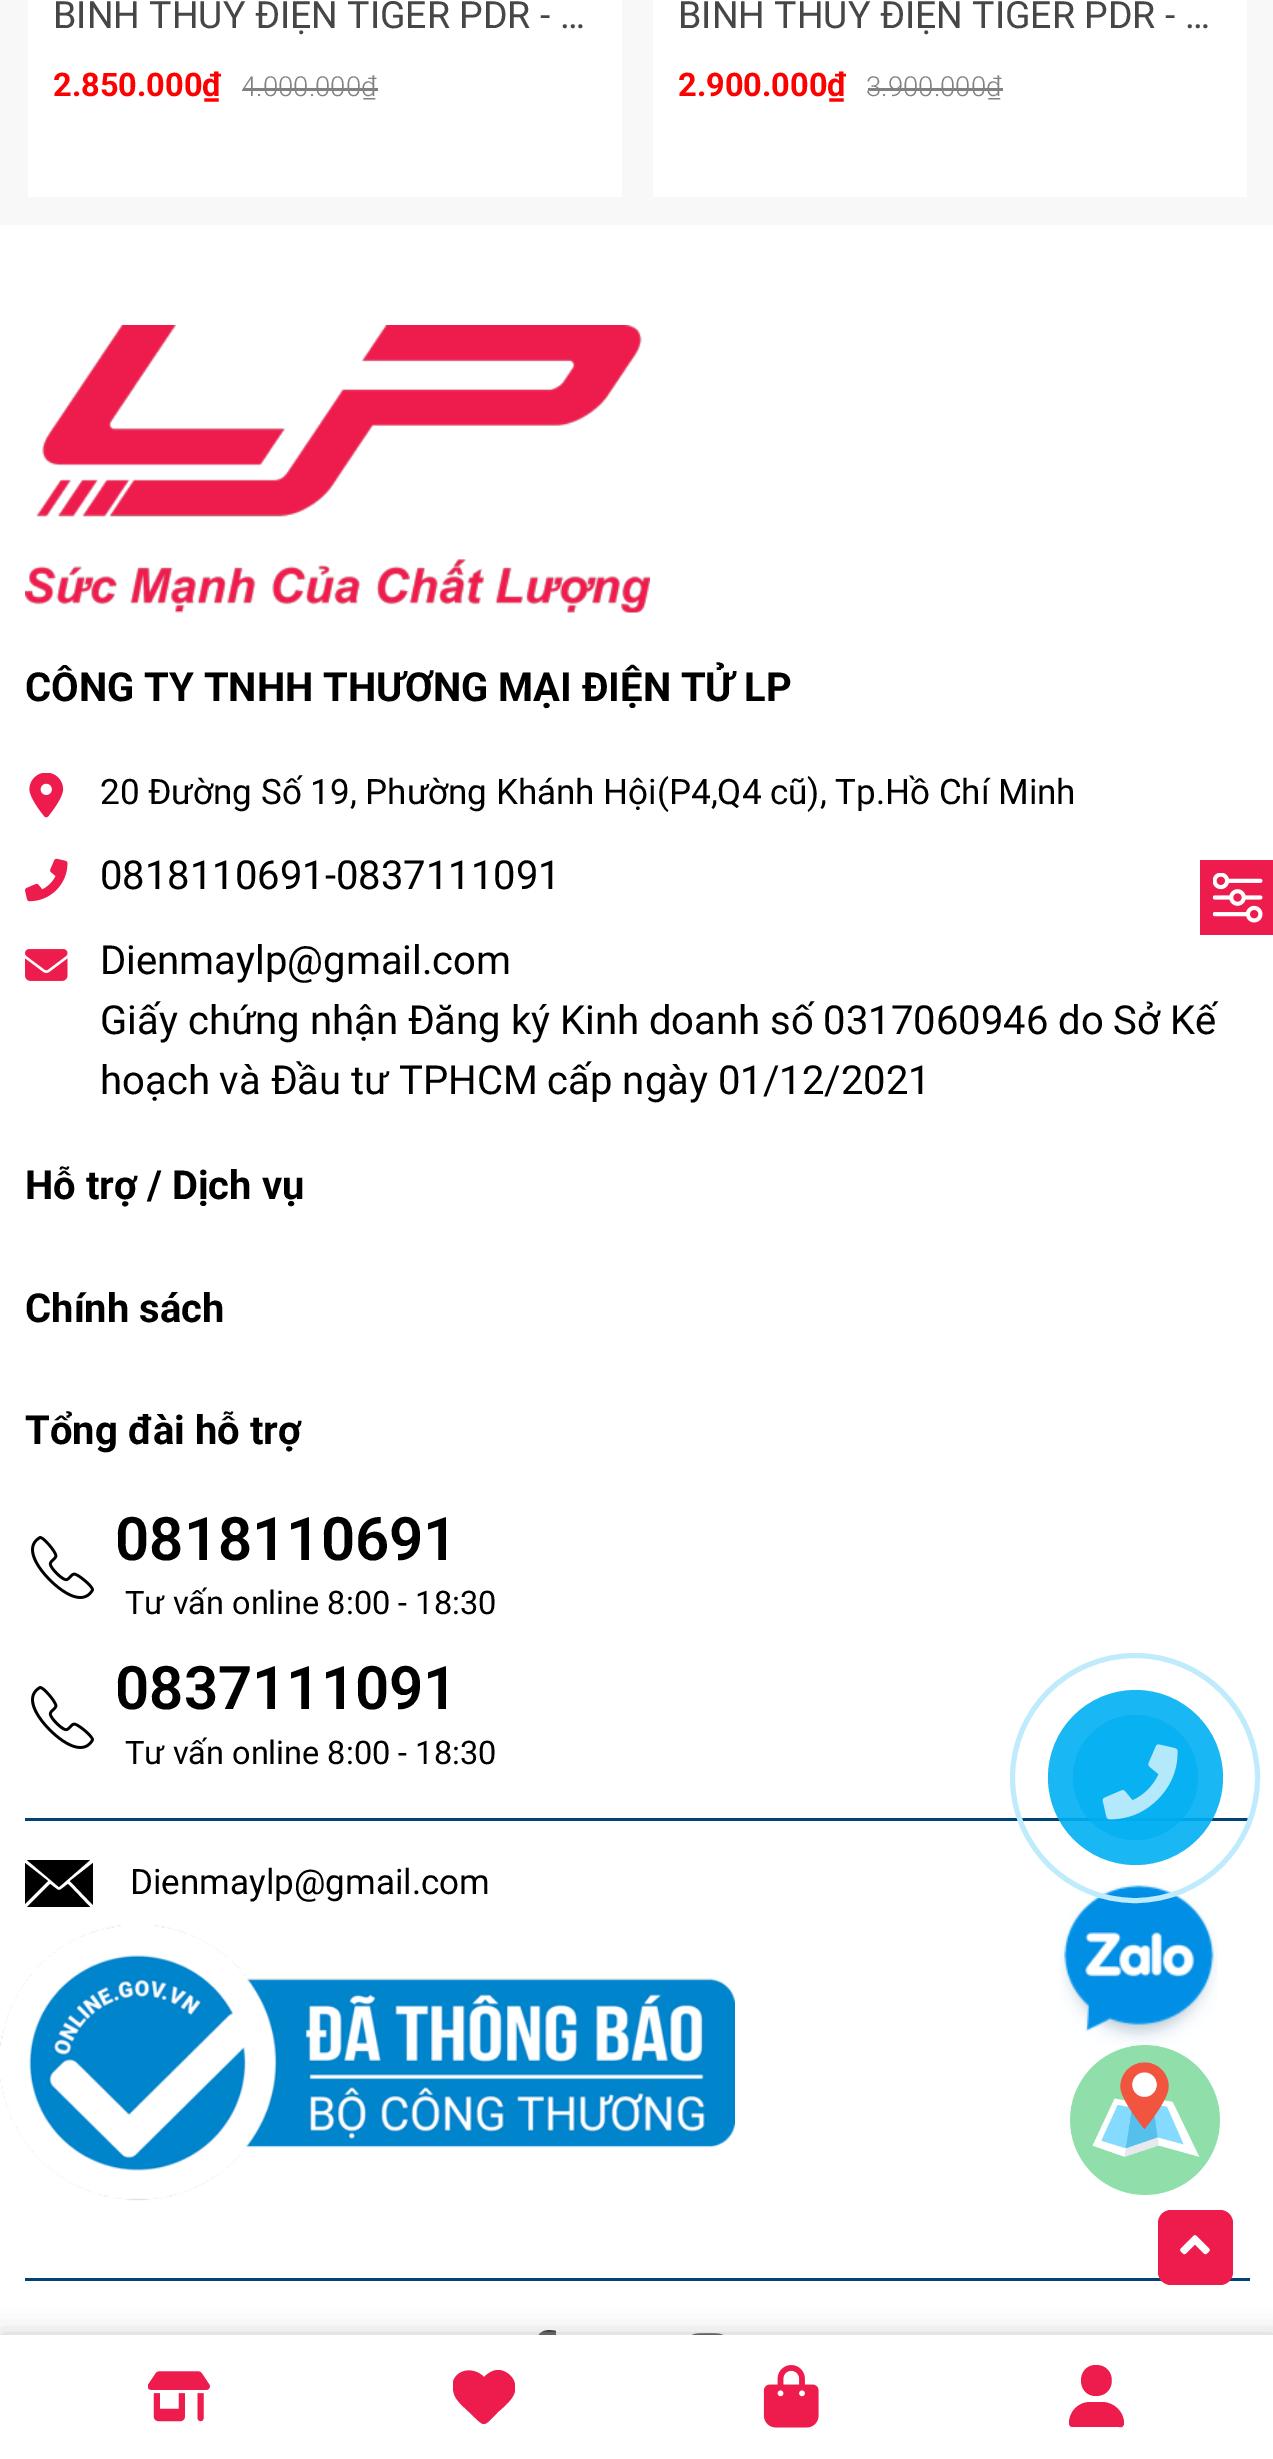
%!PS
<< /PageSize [1273 2459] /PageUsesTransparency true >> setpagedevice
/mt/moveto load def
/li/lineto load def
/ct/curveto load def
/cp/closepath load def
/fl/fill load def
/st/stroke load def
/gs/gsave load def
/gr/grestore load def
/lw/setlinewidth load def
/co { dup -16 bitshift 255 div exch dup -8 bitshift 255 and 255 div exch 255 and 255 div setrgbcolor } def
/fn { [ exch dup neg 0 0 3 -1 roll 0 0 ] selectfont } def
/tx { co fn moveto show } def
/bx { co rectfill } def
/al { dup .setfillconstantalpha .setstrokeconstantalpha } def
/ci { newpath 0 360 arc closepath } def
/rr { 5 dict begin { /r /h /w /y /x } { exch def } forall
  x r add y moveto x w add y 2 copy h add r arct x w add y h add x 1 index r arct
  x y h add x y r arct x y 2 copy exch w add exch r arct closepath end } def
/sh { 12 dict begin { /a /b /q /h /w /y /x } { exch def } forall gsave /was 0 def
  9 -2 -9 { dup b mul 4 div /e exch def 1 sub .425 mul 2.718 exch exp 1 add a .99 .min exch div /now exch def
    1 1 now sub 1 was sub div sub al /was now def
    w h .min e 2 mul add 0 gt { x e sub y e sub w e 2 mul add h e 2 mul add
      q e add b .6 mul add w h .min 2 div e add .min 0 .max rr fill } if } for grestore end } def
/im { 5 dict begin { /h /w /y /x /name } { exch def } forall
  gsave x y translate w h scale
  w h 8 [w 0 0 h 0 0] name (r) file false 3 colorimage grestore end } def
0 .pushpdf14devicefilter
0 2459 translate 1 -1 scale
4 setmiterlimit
0 0 1273 2459 16#F8F8F8 bx
28 0 594 197 16#FFFFFF bx
243 88 135 3 16#818181 bx
653 0 594 197 16#FFFFFF bx
868 88 135 3 16#818181 bx
0 225 1273 2110 16#FFFFFF bx
1200 860 73 75 16#ED1C4C bx
(media/1.raw) 1213 873 50 50 im
(media/2.raw) 25 325 625 288 im
(media/3.raw) 29 773 35 45 im
(media/4.raw) 25 858 43 44 im
(media/5.raw) 25 949 43 32 im
(media/6.raw) 31 1536 63 63 im
(media/6.raw) 31 1686 63 63 im
25 1818 1225 3 16#004374 bx
16#000000 co
27 1860 mt 59 1887 li 90 1860 li cp 25 1904 mt 48 1881 li 25 1863 li cp 50 1884 mt 27 1907 li 90 1907 li 68 1884 li 57 1892 61 1892 50 1884 ct cp 70 1881 mt 93 1905 li 93 1863 li cp fl
(media/7.raw) 0 1925 735 276 im
25 2278 1225 3 16#004374 bx
16#ED1C4C co
1158 2210 75 75 13 rr fl
(media/8.raw) 1180 2235 30 20 im
16#000000 co
554 2358 mt 556 2349 li 547 2349 li 547 2340 546 2338 556 2338 ct 556 2331 li 548 2329 539 2330 537 2339 ct 537 2349 li 529 2349 li 529 2358 li 537 2358 li 537 2380 li 547 2380 li 547 2358 li cp fl
(media/9.raw) 692 2333 31 2 im
(media/11.raw) 1060 1885 158 160 im
16#BFEBFC co
5 lw
1135 1778 122.5 ci st
0.9 al
16#00AFF2 co
1135.5 1777.5 87.5 ci fl
0.7 al
1135.5 1777.5 62.5 ci fl
1 al
(media/10.raw) 1102 1744 76 76 im
(media/12.raw) 1070 2045 150 150 im
16#C9C9C9 co
0 2335 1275 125 0 12.5 1 sh
0 2335 1273 124 16#FFFFFF bx
(media/13.raw) 148 2371 62 51 im
gs
453 2365 62 63 rectclip
16#ED1C4C co
452 2388 mt 452 2370 472 2365 484 2377 ct 488 2373 493 2370 498 2370 ct 504 2370 510 2374 513 2379 ct 521 2393 508 2403 498 2412 ct 482 2428 486 2428 469 2412 ct 462 2405 453 2399 453 2388 ct cp fl
gr
(media/14.raw) 763 2365 56 63 im
16#ED1C4C co
1096 2396 mt 1117 2396 1117 2365 1096 2365 ct 1076 2365 1076 2396 1096 2396 ct cp 1102 2402 mt 1090 2402 li 1078 2402 1069 2412 1069 2423 ct 1069 2426 1071 2427 1073 2427 ct 1119 2427 li 1122 2428 1124 2426 1124 2423 ct 1124 2412 1114 2402 1102 2402 ct cp fl
(BÌNH THỦY ĐIỆN TIGER PDR - …) 53 28 /Roboto-Regular 37.5 16#464646 tx
(2.850.000₫) 53 96 /Roboto-Bold 32.5 16#FD0000 tx
(4.000.000₫) 241 96 /Roboto-Light 27.5 16#818181 tx
(BÌNH THỦY ĐIỆN TIGER PDR - …) 678 28 /Roboto-Regular 37.5 16#464646 tx
(2.900.000₫) 678 96 /Roboto-Bold 32.5 16#FD0000 tx
(3.900.000₫) 866 96 /Roboto-Light 27.5 16#818181 tx
(CÔNG TY TNHH THƯƠNG MẠI ĐIỆN TỬ LP) 25 701 /Roboto-Bold 40 16#000000 tx
(20 Đường Số 19, Phường Khánh Hội\(P4,Q4 cũ\), Tp.Hồ Chí Minh) 100 804 /Roboto-Regular 35 16#000000 tx
(0818110691-0837111091) 100 889 /Roboto-Regular 40 16#000000 tx
(Dienmaylp@gmail.com) 100 974 /Roboto-Regular 40 16#000000 tx
(Giấy chứng nhận Đăng ký Kinh doanh số 0317060946 do Sở Kế) 100 1034 /Roboto-Regular 40 16#000000 tx
(hoạch và Đầu tư TPHCM cấp ngày 01/12/2021) 100 1094 /Roboto-Regular 40 16#000000 tx
(Hỗ trợ / Dịch vụ) 25 1199 /Roboto-Bold 40 16#000000 tx
(Chính sách) 25 1322 /Roboto-Bold 40 16#000000 tx
(Tổng đài hỗ trợ) 25 1444 /Roboto-Bold 40 16#000000 tx
(0818110691) 115 1560 /Roboto-SemiBold 60 16#000000 tx
(Tư vấn online 8:00 - 18:30) 125 1614 /Roboto-Regular 32.5 16#000000 tx
(0837111091) 115 1709 /Roboto-SemiBold 60 16#000000 tx
(Tư vấn online 8:00 - 18:30) 125 1764 /Roboto-Regular 32.5 16#000000 tx
(Dienmaylp@gmail.com) 130 1894 /Roboto-Regular 35 16#000000 tx
.poppdf14devicefilter showpage
